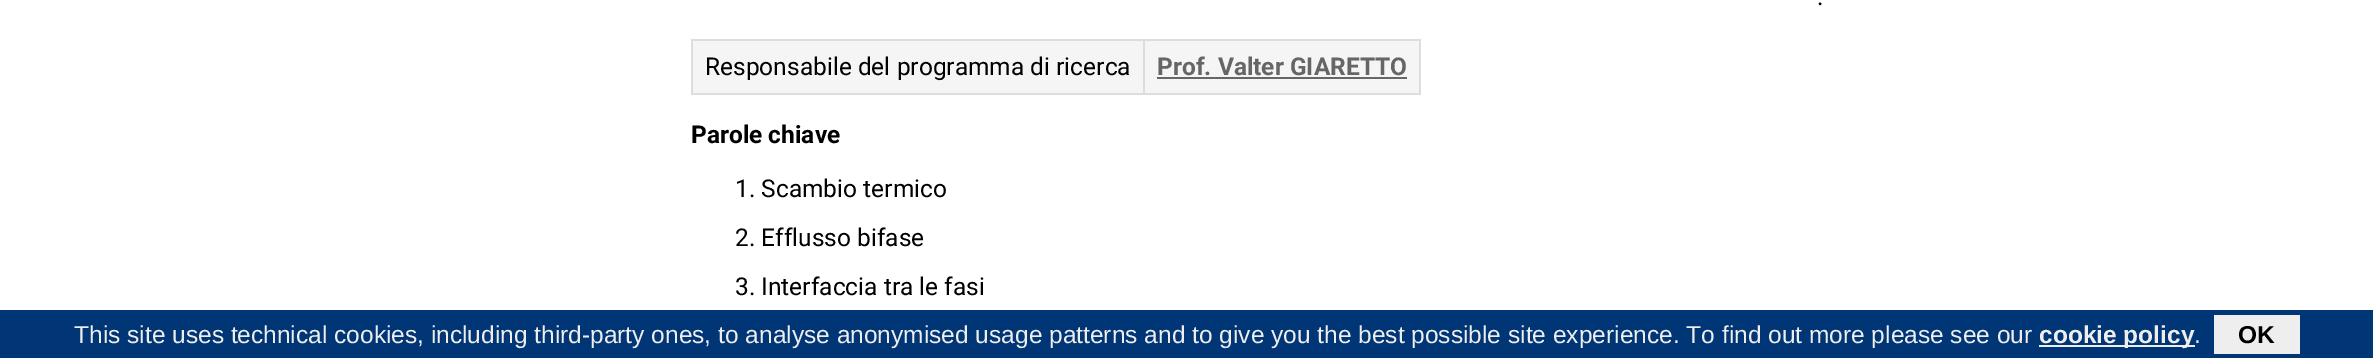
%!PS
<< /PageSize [2373 358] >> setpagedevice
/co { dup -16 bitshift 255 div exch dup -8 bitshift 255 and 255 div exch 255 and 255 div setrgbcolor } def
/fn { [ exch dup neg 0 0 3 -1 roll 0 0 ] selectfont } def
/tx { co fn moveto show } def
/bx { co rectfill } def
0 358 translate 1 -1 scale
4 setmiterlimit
0 0 2373 358 16#FFFFFF bx
693 41 726 52 16#F5F5F5 bx
691 39 730 2 16#DDDDDD bx
691 39 2 56 16#DDDDDD bx
1419 39 2 56 16#DDDDDD bx
1143 93 278 2 16#DDDDDD bx
1143 39 2 56 16#DDDDDD bx
691 93 454 2 16#DDDDDD bx
1157 77 250 2 16#666666 bx
0 310 2373 48 16#003576 bx
2039 345 156 2 16#EEEEEE bx
2214 315 86 39 16#EEEEEE bx
(.) 1817 5 /Roboto-Regular 24.5 16#000000 tx
(Responsabile del programma di ricerca) 705 75 /Roboto-Regular 24.5 16#000000 tx
(Prof. Valter GIARETTO) 1157 75 /Roboto-Bold 24.5 16#666666 tx
(Parole chiave) 691 143 /Roboto-Bold 24.5 16#000000 tx
(1. Scambio termico) 735 197 /Roboto-Regular 24.5 16#000000 tx
(2. Efflusso bifase) 735 246 /Roboto-Regular 24.5 16#000000 tx
(3. Interfaccia tra le fasi) 735 295 /Roboto-Regular 24.5 16#000000 tx
(This site uses technical cookies, including third-party ones, to analyse anonymised usage patterns and to give you the best possible site experience. To find out more please see our) 74 343 /LiberationSans-Regular 24.5 16#EEEEEE tx
(cookie policy) 2039 343 /LiberationSans-Bold 24.5 16#EEEEEE tx
(.) 2194 343 /LiberationSans-Regular 24.5 16#EEEEEE tx
(OK) 2238 343 /LiberationSans-Bold 24.5 16#000000 tx
showpage
